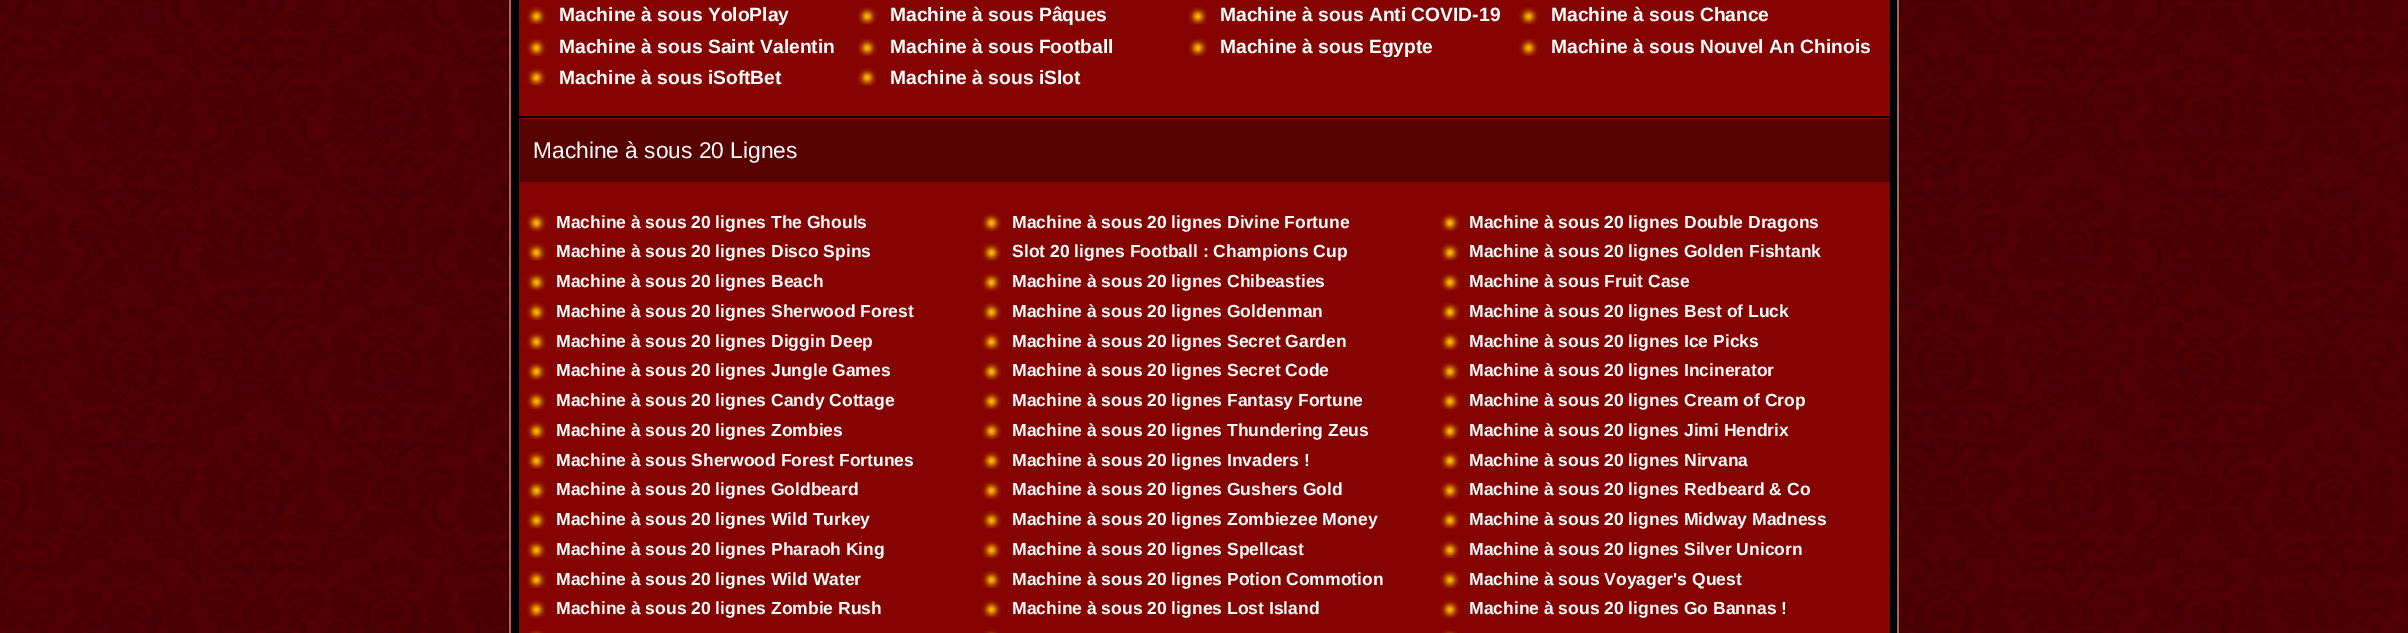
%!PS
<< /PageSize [2408 633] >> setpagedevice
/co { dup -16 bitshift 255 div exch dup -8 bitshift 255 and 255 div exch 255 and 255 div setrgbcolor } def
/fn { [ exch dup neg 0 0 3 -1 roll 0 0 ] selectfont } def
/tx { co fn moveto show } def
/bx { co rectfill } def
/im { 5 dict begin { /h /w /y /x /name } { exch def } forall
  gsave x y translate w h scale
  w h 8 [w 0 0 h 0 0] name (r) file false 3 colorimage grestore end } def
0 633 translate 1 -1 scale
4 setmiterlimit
0 0 2408 633 16#FFFFFF bx
(media/1.raw) 0 0 2408 633 im
509 0 1390 633 16#A96660 bx
511 0 1386 633 16#000000 bx
519 0 1371 116 16#850301 bx
(media/2.raw) 526 7 20 18 im
(media/3.raw) 857 7 20 18 im
(media/4.raw) 1188 7 20 18 im
(media/5.raw) 1518 7 20 18 im
(media/6.raw) 526 38 20 18 im
(media/7.raw) 857 38 20 18 im
(media/8.raw) 1188 38 20 18 im
(media/9.raw) 1518 38 20 18 im
(media/10.raw) 526 68 20 18 im
(media/11.raw) 857 68 20 18 im
519 118 1371 515 16#850301 bx
520 119 1370 63 16#580000 bx
(media/6.raw) 526 213 20 18 im
(media/12.raw) 981 213 20 18 im
(media/13.raw) 1440 213 20 18 im
(media/10.raw) 526 243 20 18 im
(media/14.raw) 981 243 20 18 im
(media/15.raw) 1440 243 20 18 im
(media/2.raw) 526 273 20 18 im
(media/16.raw) 981 273 20 18 im
(media/17.raw) 1440 273 20 18 im
(media/18.raw) 526 302 20 18 im
(media/19.raw) 981 302 20 18 im
(media/20.raw) 1440 302 20 18 im
(media/6.raw) 526 332 20 18 im
(media/12.raw) 981 332 20 18 im
(media/13.raw) 1440 332 20 18 im
(media/21.raw) 526 362 20 18 im
(media/22.raw) 981 362 20 18 im
(media/23.raw) 1440 362 20 18 im
(media/2.raw) 526 392 20 18 im
(media/16.raw) 981 392 20 18 im
(media/17.raw) 1440 392 20 18 im
(media/18.raw) 526 421 20 18 im
(media/19.raw) 981 421 20 18 im
(media/20.raw) 1440 421 20 18 im
(media/6.raw) 526 451 20 18 im
(media/12.raw) 981 451 20 18 im
(media/13.raw) 1440 451 20 18 im
(media/10.raw) 526 481 20 18 im
(media/14.raw) 981 481 20 18 im
(media/15.raw) 1440 481 20 18 im
(media/2.raw) 526 511 20 18 im
(media/16.raw) 981 511 20 18 im
(media/17.raw) 1440 511 20 18 im
(media/18.raw) 526 540 20 18 im
(media/19.raw) 981 540 20 18 im
(media/20.raw) 1440 540 20 18 im
(media/6.raw) 526 570 20 18 im
(media/12.raw) 981 570 20 18 im
(media/13.raw) 1440 570 20 18 im
(media/10.raw) 526 600 20 18 im
(media/14.raw) 981 600 20 18 im
(media/15.raw) 1440 600 20 18 im
(media/24.raw) 529 630 15 3 im
(media/25.raw) 984 630 15 3 im
(media/26.raw) 1442 630 15 3 im
(Machine à sous YoloPlay) 559 21 /LiberationSans-Bold 19.25 16#FFFFFF tx
(Machine à sous Pâques) 890 21 /LiberationSans-Bold 19.25 16#FFFFFF tx
(Machine à sous Anti COVID-19) 1220 21 /LiberationSans-Bold 19.25 16#FFFFFF tx
(Machine à sous Chance) 1551 21 /LiberationSans-Bold 19.25 16#FFFFFF tx
(Machine à sous Saint Valentin) 559 53 /LiberationSans-Bold 19.25 16#FFFFFF tx
(Machine à sous Football) 890 53 /LiberationSans-Bold 19.25 16#FFFFFF tx
(Machine à sous Egypte) 1220 53 /LiberationSans-Bold 19.25 16#FFFFFF tx
(Machine à sous Nouvel An Chinois) 1551 53 /LiberationSans-Bold 19.25 16#FFFFFF tx
(Machine à sous iSoftBet) 559 84 /LiberationSans-Bold 19.25 16#FFFFFF tx
(Machine à sous iSlot) 890 84 /LiberationSans-Bold 19.25 16#FFFFFF tx
(Machine à sous 20 Lignes) 533 158 /LiberationSans-Regular 22.75 16#FFFFFF tx
(Machine à sous 20 lignes The Ghouls) 556 228 /LiberationSans-Bold 17.5 16#FFFFFF tx
(Machine à sous 20 lignes Divine Fortune) 1012 228 /LiberationSans-Bold 17.5 16#FFFFFF tx
(Machine à sous 20 lignes Double Dragons) 1469 228 /LiberationSans-Bold 17.5 16#FFFFFF tx
(Machine à sous 20 lignes Disco Spins) 556 257 /LiberationSans-Bold 17.5 16#FFFFFF tx
(Slot 20 lignes Football : Champions Cup) 1012 257 /LiberationSans-Bold 17.5 16#FFFFFF tx
(Machine à sous 20 lignes Golden Fishtank) 1469 257 /LiberationSans-Bold 17.5 16#FFFFFF tx
(Machine à sous 20 lignes Beach) 556 287 /LiberationSans-Bold 17.5 16#FFFFFF tx
(Machine à sous 20 lignes Chibeasties) 1012 287 /LiberationSans-Bold 17.5 16#FFFFFF tx
(Machine à sous Fruit Case) 1469 287 /LiberationSans-Bold 17.5 16#FFFFFF tx
(Machine à sous 20 lignes Sherwood Forest) 556 317 /LiberationSans-Bold 17.5 16#FFFFFF tx
(Machine à sous 20 lignes Goldenman) 1012 317 /LiberationSans-Bold 17.5 16#FFFFFF tx
(Machine à sous 20 lignes Best of Luck) 1469 317 /LiberationSans-Bold 17.5 16#FFFFFF tx
(Machine à sous 20 lignes Diggin Deep) 556 347 /LiberationSans-Bold 17.5 16#FFFFFF tx
(Machine à sous 20 lignes Secret Garden) 1012 347 /LiberationSans-Bold 17.5 16#FFFFFF tx
(Machine à sous 20 lignes Ice Picks) 1469 347 /LiberationSans-Bold 17.5 16#FFFFFF tx
(Machine à sous 20 lignes Jungle Games) 556 376 /LiberationSans-Bold 17.5 16#FFFFFF tx
(Machine à sous 20 lignes Secret Code) 1012 376 /LiberationSans-Bold 17.5 16#FFFFFF tx
(Machine à sous 20 lignes Incinerator) 1469 376 /LiberationSans-Bold 17.5 16#FFFFFF tx
(Machine à sous 20 lignes Candy Cottage) 556 406 /LiberationSans-Bold 17.5 16#FFFFFF tx
(Machine à sous 20 lignes Fantasy Fortune) 1012 406 /LiberationSans-Bold 17.5 16#FFFFFF tx
(Machine à sous 20 lignes Cream of Crop) 1469 406 /LiberationSans-Bold 17.5 16#FFFFFF tx
(Machine à sous 20 lignes Zombies) 556 436 /LiberationSans-Bold 17.5 16#FFFFFF tx
(Machine à sous 20 lignes Thundering Zeus) 1012 436 /LiberationSans-Bold 17.5 16#FFFFFF tx
(Machine à sous 20 lignes Jimi Hendrix) 1469 436 /LiberationSans-Bold 17.5 16#FFFFFF tx
(Machine à sous Sherwood Forest Fortunes) 556 466 /LiberationSans-Bold 17.5 16#FFFFFF tx
(Machine à sous 20 lignes Invaders !) 1012 466 /LiberationSans-Bold 17.5 16#FFFFFF tx
(Machine à sous 20 lignes Nirvana) 1469 466 /LiberationSans-Bold 17.5 16#FFFFFF tx
(Machine à sous 20 lignes Goldbeard) 556 495 /LiberationSans-Bold 17.5 16#FFFFFF tx
(Machine à sous 20 lignes Gushers Gold) 1012 495 /LiberationSans-Bold 17.5 16#FFFFFF tx
(Machine à sous 20 lignes Redbeard & Co) 1469 495 /LiberationSans-Bold 17.5 16#FFFFFF tx
(Machine à sous 20 lignes Wild Turkey) 556 525 /LiberationSans-Bold 17.5 16#FFFFFF tx
(Machine à sous 20 lignes Zombiezee Money) 1012 525 /LiberationSans-Bold 17.5 16#FFFFFF tx
(Machine à sous 20 lignes Midway Madness) 1469 525 /LiberationSans-Bold 17.5 16#FFFFFF tx
(Machine à sous 20 lignes Pharaoh King) 556 555 /LiberationSans-Bold 17.5 16#FFFFFF tx
(Machine à sous 20 lignes Spellcast) 1012 555 /LiberationSans-Bold 17.5 16#FFFFFF tx
(Machine à sous 20 lignes Silver Unicorn) 1469 555 /LiberationSans-Bold 17.5 16#FFFFFF tx
(Machine à sous 20 lignes Wild Water) 556 585 /LiberationSans-Bold 17.5 16#FFFFFF tx
(Machine à sous 20 lignes Potion Commotion) 1012 585 /LiberationSans-Bold 17.5 16#FFFFFF tx
(Machine à sous Voyager's Quest) 1469 585 /LiberationSans-Bold 17.5 16#FFFFFF tx
(Machine à sous 20 lignes Zombie Rush) 556 614 /LiberationSans-Bold 17.5 16#FFFFFF tx
(Machine à sous 20 lignes Lost Island) 1012 614 /LiberationSans-Bold 17.5 16#FFFFFF tx
(Machine à sous 20 lignes Go Bannas !) 1469 614 /LiberationSans-Bold 17.5 16#FFFFFF tx
showpage
